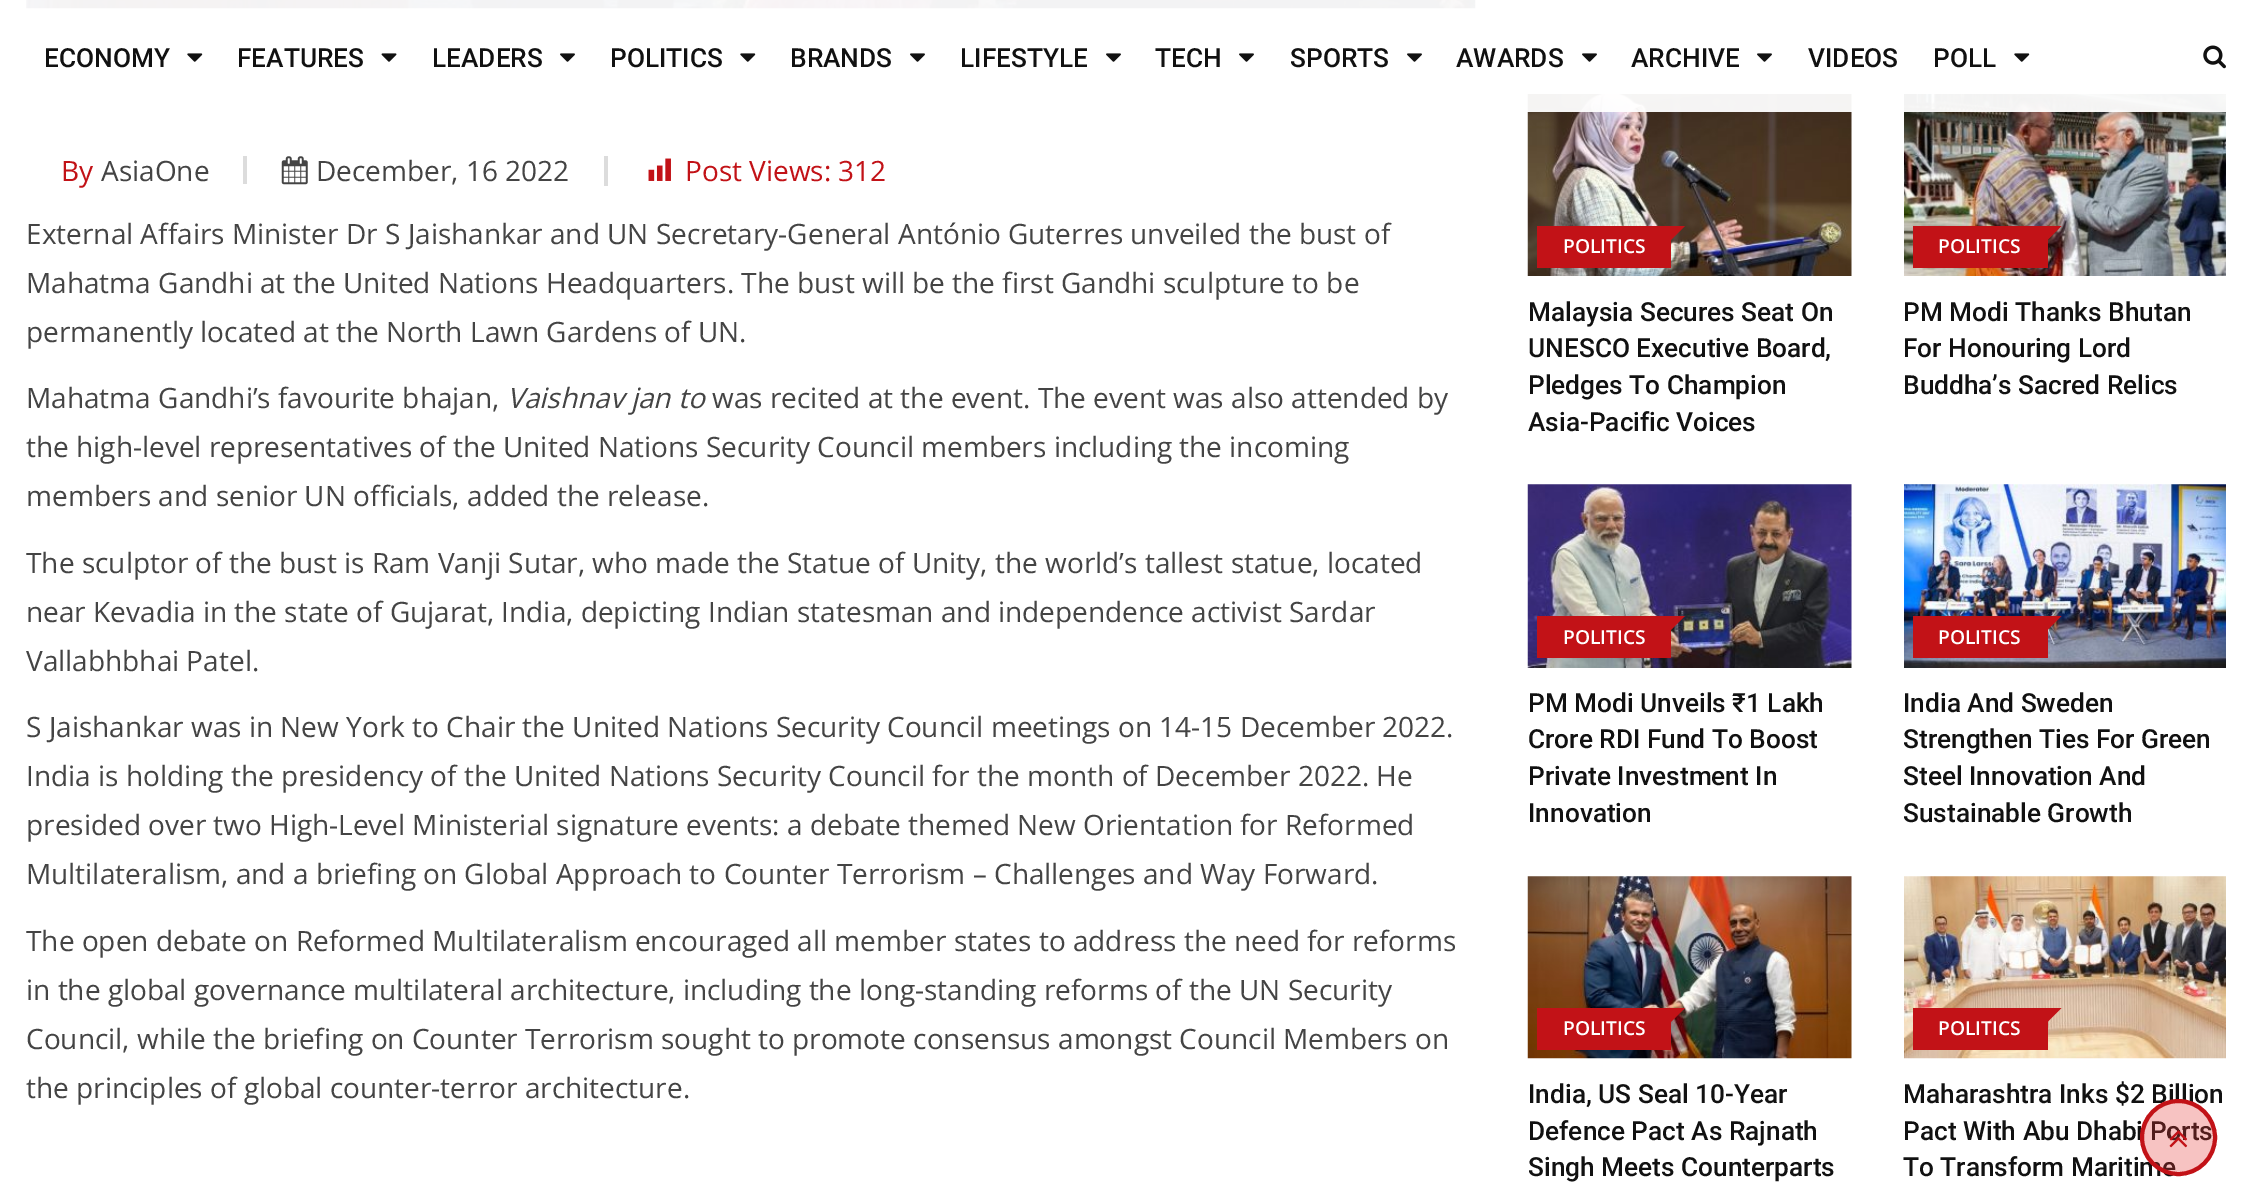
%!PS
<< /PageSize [2251 1184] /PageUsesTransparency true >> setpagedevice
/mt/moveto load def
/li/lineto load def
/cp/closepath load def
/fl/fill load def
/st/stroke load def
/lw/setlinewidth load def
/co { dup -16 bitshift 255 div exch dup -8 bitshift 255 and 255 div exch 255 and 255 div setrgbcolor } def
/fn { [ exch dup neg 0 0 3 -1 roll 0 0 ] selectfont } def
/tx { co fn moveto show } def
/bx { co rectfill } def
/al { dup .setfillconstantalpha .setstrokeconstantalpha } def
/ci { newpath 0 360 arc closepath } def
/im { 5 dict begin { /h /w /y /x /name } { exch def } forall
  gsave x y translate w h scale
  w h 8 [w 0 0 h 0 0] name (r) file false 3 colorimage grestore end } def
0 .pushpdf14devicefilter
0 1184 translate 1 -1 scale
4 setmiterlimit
0 0 2251 1184 16#FFFFFF bx
(media/5.raw) 26 0 1450 9 im
(media/8.raw) 1527 94 325 182 im
(media/9.raw) 1904 94 322 182 im
0.95 al
26 0 2200 112 16#FFFFFF bx
1 al
(media/1.raw) 187 53 16 9 im
(media/2.raw) 381 53 16 9 im
(media/3.raw) 560 53 15 9 im
(media/1.raw) 740 53 16 9 im
(media/3.raw) 910 53 15 9 im
(media/3.raw) 1106 53 15 9 im
(media/3.raw) 1239 53 15 9 im
(media/3.raw) 1407 53 15 9 im
(media/3.raw) 1582 53 15 9 im
(media/3.raw) 1757 53 15 9 im
(media/1.raw) 2014 53 16 9 im
(media/4.raw) 2203 45 23 24 im
243 156 4 28 16#DCDCDC bx
604 156 4 30 16#DCDCDC bx
(media/6.raw) 281 156 27 29 im
(media/7.raw) 648 158 23 23 im
1537 226 134 42 16#C21217 bx
1671 226 mt 1685 226 li 1671 240 li cp fl
1913 226 135 42 16#C21217 bx
2047.5 226 mt 2061.5 226 li 2047.5 240 li cp fl
(media/10.raw) 1527 484 325 184 im
1537 616 134 42 16#C21217 bx
1671 616 mt 1685 616 li 1671 630 li cp fl
(media/11.raw) 1904 484 322 184 im
1913 616 135 42 16#C21217 bx
2047.5 616 mt 2061.5 616 li 2047.5 630 li cp fl
(media/12.raw) 1527 876 325 183 im
1537 1008 134 42 16#C21217 bx
1671 1008 mt 1685 1008 li 1671 1022 li cp fl
(media/13.raw) 1904 876 322 183 im
1913 1008 135 42 16#C21217 bx
2047.5 1008 mt 2061.5 1008 li 2047.5 1022 li cp fl
(ECONOMY) 44 67 /Roboto-Medium 26.25 16#111111 tx
(FEATURES) 237 67 /Roboto-Medium 26.25 16#111111 tx
(LEADERS) 432 67 /Roboto-Medium 26.25 16#111111 tx
(POLITICS) 610 67 /Roboto-Medium 26.25 16#111111 tx
(BRANDS) 790 67 /Roboto-Medium 26.25 16#111111 tx
(LIFESTYLE) 960 67 /Roboto-Medium 26.25 16#111111 tx
(TECH) 1155 67 /Roboto-Medium 26.25 16#111111 tx
(SPORTS) 1290 67 /Roboto-Medium 26.25 16#111111 tx
(AWARDS) 1456 67 /Roboto-Medium 26.25 16#111111 tx
(ARCHIVE) 1631 67 /Roboto-Medium 26.25 16#111111 tx
(VIDEOS) 1808 67 /Roboto-Medium 26.25 16#111111 tx
(POLL) 1933 67 /Roboto-Medium 26.25 16#111111 tx
(By) 61 181 /OpenSans-Regular 28 16#C21217 tx
(AsiaOne) 101 181 /OpenSans-Regular 28 16#444444 tx
(December, 16 2022) 316 181 /OpenSans-Regular 28 16#444444 tx
(Post Views: 312) 685 181 /OpenSans-Regular 28 16#C21217 tx
(External Affairs Minister Dr S Jaishankar and UN Secretary-General António Guterres unveiled the bust of) 26 244 /OpenSans-Regular 28 16#444444 tx
(Mahatma Gandhi at the United Nations Headquarters. The bust will be the first Gandhi sculpture to be) 26 293 /OpenSans-Regular 28 16#444444 tx
(permanently located at the North Lawn Gardens of UN.) 26 342 /OpenSans-Regular 28 16#444444 tx
(Mahatma Gandhi’s favourite bhajan,) 26 408 /OpenSans-Regular 28 16#444444 tx
(Vaishnav jan to) 507 408 /OpenSans-Italic 28 16#444444 tx
(was recited at the event. The event was also attended by) 712 408 /OpenSans-Regular 28 16#444444 tx
(the high-level representatives of the United Nations Security Council members including the incoming) 26 457 /OpenSans-Regular 28 16#444444 tx
(members and senior UN officials, added the release.) 26 506 /OpenSans-Regular 28 16#444444 tx
(The sculptor of the bust is Ram Vanji Sutar, who made the Statue of Unity, the world’s tallest statue, located) 26 573 /OpenSans-Regular 28 16#444444 tx
(near Kevadia in the state of Gujarat, India, depicting Indian statesman and independence activist Sardar) 26 622 /OpenSans-Regular 28 16#444444 tx
(Vallabhbhai Patel.) 26 671 /OpenSans-Regular 28 16#444444 tx
(S Jaishankar was in New York to Chair the United Nations Security Council meetings on 14-15 December 2022.) 26 737 /OpenSans-Regular 28 16#444444 tx
(India is holding the presidency of the United Nations Security Council for the month of December 2022. He) 26 786 /OpenSans-Regular 28 16#444444 tx
(presided over two High-Level Ministerial signature events: a debate themed New Orientation for Reformed) 26 835 /OpenSans-Regular 28 16#444444 tx
(Multilateralism, and a briefing on Global Approach to Counter Terrorism – Challenges and Way Forward.) 26 884 /OpenSans-Regular 28 16#444444 tx
(The open debate on Reformed Multilateralism encouraged all member states to address the need for reforms) 26 951 /OpenSans-Regular 28 16#444444 tx
(in the global governance multilateral architecture, including the long-standing reforms of the UN Security) 26 1000 /OpenSans-Regular 28 16#444444 tx
(Council, while the briefing on Counter Terrorism sought to promote consensus amongst Council Members on) 26 1049 /OpenSans-Regular 28 16#444444 tx
(the principles of global counter-terror architecture.) 26 1098 /OpenSans-Regular 28 16#444444 tx
(POLITICS) 1563 253 /OpenSans-SemiBold 19.25 16#FFFFFF tx
(Malaysia Secures Seat On) 1528 321 /Roboto-Medium 26.25 16#111111 tx
(UNESCO Executive Board,) 1528 357 /Roboto-Medium 26.25 16#111111 tx
(Pledges To Champion) 1528 394 /Roboto-Medium 26.25 16#111111 tx
(Asia-Pacific Voices) 1528 431 /Roboto-Medium 26.25 16#111111 tx
(POLITICS) 1938 253 /OpenSans-SemiBold 19.25 16#FFFFFF tx
(PM Modi Thanks Bhutan) 1903 321 /Roboto-Medium 26.25 16#111111 tx
(For Honouring Lord) 1903 357 /Roboto-Medium 26.25 16#111111 tx
(Buddha’s Sacred Relics) 1903 394 /Roboto-Medium 26.25 16#111111 tx
(POLITICS) 1563 644 /OpenSans-SemiBold 19.25 16#FFFFFF tx
(PM Modi Unveils ₹1 Lakh) 1528 712 /Roboto-Medium 26.25 16#111111 tx
(Crore RDI Fund To Boost) 1528 748 /Roboto-Medium 26.25 16#111111 tx
(Private Investment In) 1528 785 /Roboto-Medium 26.25 16#111111 tx
(Innovation) 1528 822 /Roboto-Medium 26.25 16#111111 tx
(POLITICS) 1938 644 /OpenSans-SemiBold 19.25 16#FFFFFF tx
(India And Sweden) 1903 712 /Roboto-Medium 26.25 16#111111 tx
(Strengthen Ties For Green) 1903 748 /Roboto-Medium 26.25 16#111111 tx
(Steel Innovation And) 1903 785 /Roboto-Medium 26.25 16#111111 tx
(Sustainable Growth) 1903 822 /Roboto-Medium 26.25 16#111111 tx
(POLITICS) 1563 1035 /OpenSans-SemiBold 19.25 16#FFFFFF tx
(India, US Seal 10-Year) 1528 1103 /Roboto-Medium 26.25 16#111111 tx
(Defence Pact As Rajnath) 1528 1140 /Roboto-Medium 26.25 16#111111 tx
(Singh Meets Counterparts) 1528 1176 /Roboto-Medium 26.25 16#111111 tx
(POLITICS) 1938 1035 /OpenSans-SemiBold 19.25 16#FFFFFF tx
(Maharashtra Inks $2 Billion) 1903 1103 /Roboto-Medium 26.25 16#111111 tx
(Pact With Abu Dhabi Ports) 1903 1140 /Roboto-Medium 26.25 16#111111 tx
(To Transform Maritime) 1903 1176 /Roboto-Medium 26.25 16#111111 tx
0.3 al
16#E53935 co
2178.5 1137.5 36.5 ci fl
1 al
16#C21217 co
4 lw
2178.5 1137.5 36.5 ci st
(media/14.raw) 2169 1130 19 18 im
.poppdf14devicefilter showpage
